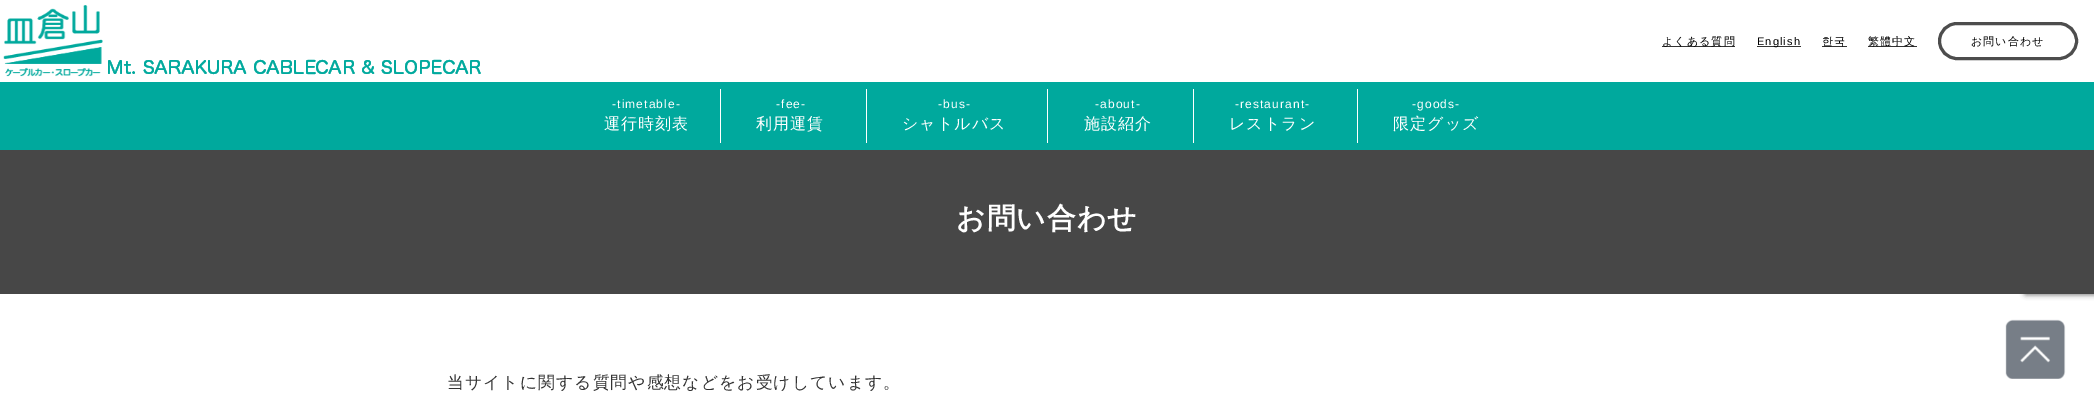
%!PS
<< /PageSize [2094 395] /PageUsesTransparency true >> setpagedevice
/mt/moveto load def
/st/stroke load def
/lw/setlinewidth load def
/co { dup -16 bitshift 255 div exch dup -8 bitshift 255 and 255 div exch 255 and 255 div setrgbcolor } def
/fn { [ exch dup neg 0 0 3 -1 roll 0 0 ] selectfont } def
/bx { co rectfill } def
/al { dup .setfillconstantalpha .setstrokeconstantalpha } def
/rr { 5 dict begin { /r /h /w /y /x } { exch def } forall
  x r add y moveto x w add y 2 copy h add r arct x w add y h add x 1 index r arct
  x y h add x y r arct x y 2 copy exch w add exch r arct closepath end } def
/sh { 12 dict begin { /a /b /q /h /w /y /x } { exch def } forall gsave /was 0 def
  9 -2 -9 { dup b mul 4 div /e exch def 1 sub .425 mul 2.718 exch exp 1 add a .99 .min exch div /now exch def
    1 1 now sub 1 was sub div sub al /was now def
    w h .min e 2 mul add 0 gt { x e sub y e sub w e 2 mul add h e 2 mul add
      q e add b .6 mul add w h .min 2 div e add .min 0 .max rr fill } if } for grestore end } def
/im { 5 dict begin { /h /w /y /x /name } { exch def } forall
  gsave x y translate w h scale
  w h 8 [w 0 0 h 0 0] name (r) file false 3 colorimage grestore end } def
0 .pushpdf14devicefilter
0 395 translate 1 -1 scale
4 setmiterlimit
0 0 2094 395 16#FFFFFF bx
(media/1.raw) 3 5 100 72 im
(media/2.raw) 108 59 373 16 im
1662 46 73 1 16#333333 bx
1757 46 44 1 16#333333 bx
1822 46 25 1 16#333333 bx
1868 46 49 1 16#333333 bx
16#4D4D4D co
3 lw
1939.5 23.5 137 35 17.5 rr st
0 82 2094 68 16#00A99D bx
720 89 1 54 16#FFFFFF bx
866 89 1 54 16#FFFFFF bx
1047 89 1 54 16#FFFFFF bx
1193 89 1 54 16#FFFFFF bx
1357 89 1 54 16#FFFFFF bx
16#808080 co
2024 235 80 60 2 2.5 1 sh
0 150 2094 144 16#474747 bx
(media/3.raw) 2005 319 61 60 im
/WenQuanYiZenHei-Medium 11 fn
16#000000 co
1662 45 mt 1.1 0 (よくある質問) ashow
/LiberationSans-Regular 11 fn
1757 45 mt 1.1 0 (English) ashow
/WenQuanYiZenHei-Medium 11 fn
1822 45 mt 1.1 0 (한국) ashow
1868 45 mt 1.1 0 (繁體中文) ashow
1971 45 mt 1.1 0 (お問い合わせ) ashow
/LiberationSans-Regular 12 fn
16#FFFFFF co
612 108 mt 1.1 0 (-timetable-) ashow
/WenQuanYiZenHei-Medium 16 fn
604 129 mt 1.1 0 (運行時刻表) ashow
/LiberationSans-Regular 12 fn
776 108 mt 1.1 0 (-fee-) ashow
/WenQuanYiZenHei-Medium 16 fn
756 129 mt 1.1 0 (利用運賃) ashow
/LiberationSans-Regular 12 fn
938 108 mt 1.1 0 (-bus-) ashow
/WenQuanYiZenHei-Medium 16 fn
902 129 mt 1.1 0 (シャトルバス) ashow
/LiberationSans-Regular 12 fn
1095 108 mt 1.1 0 (-about-) ashow
/WenQuanYiZenHei-Medium 16 fn
1084 129 mt 1.1 0 (施設紹介) ashow
/LiberationSans-Regular 12 fn
1235 108 mt 1.1 0 (-restaurant-) ashow
/WenQuanYiZenHei-Medium 16 fn
1229 129 mt 1.1 0 (レストラン) ashow
/LiberationSans-Regular 12 fn
1412 108 mt 1.1 0 (-goods-) ashow
/WenQuanYiZenHei-Medium 16 fn
1393 129 mt 1.1 0 (限定グッズ) ashow
/WenQuanYiZenHei-Bold 28.75 fn
956 228 mt 1.1 0 (お問い合わせ) ashow
/WenQuanYiZenHei-Medium 16.8 fn
16#333333 co
447 388 mt 1.1 0 (当サイトに関する質問や感想などをお受けしています。) ashow
.poppdf14devicefilter showpage
